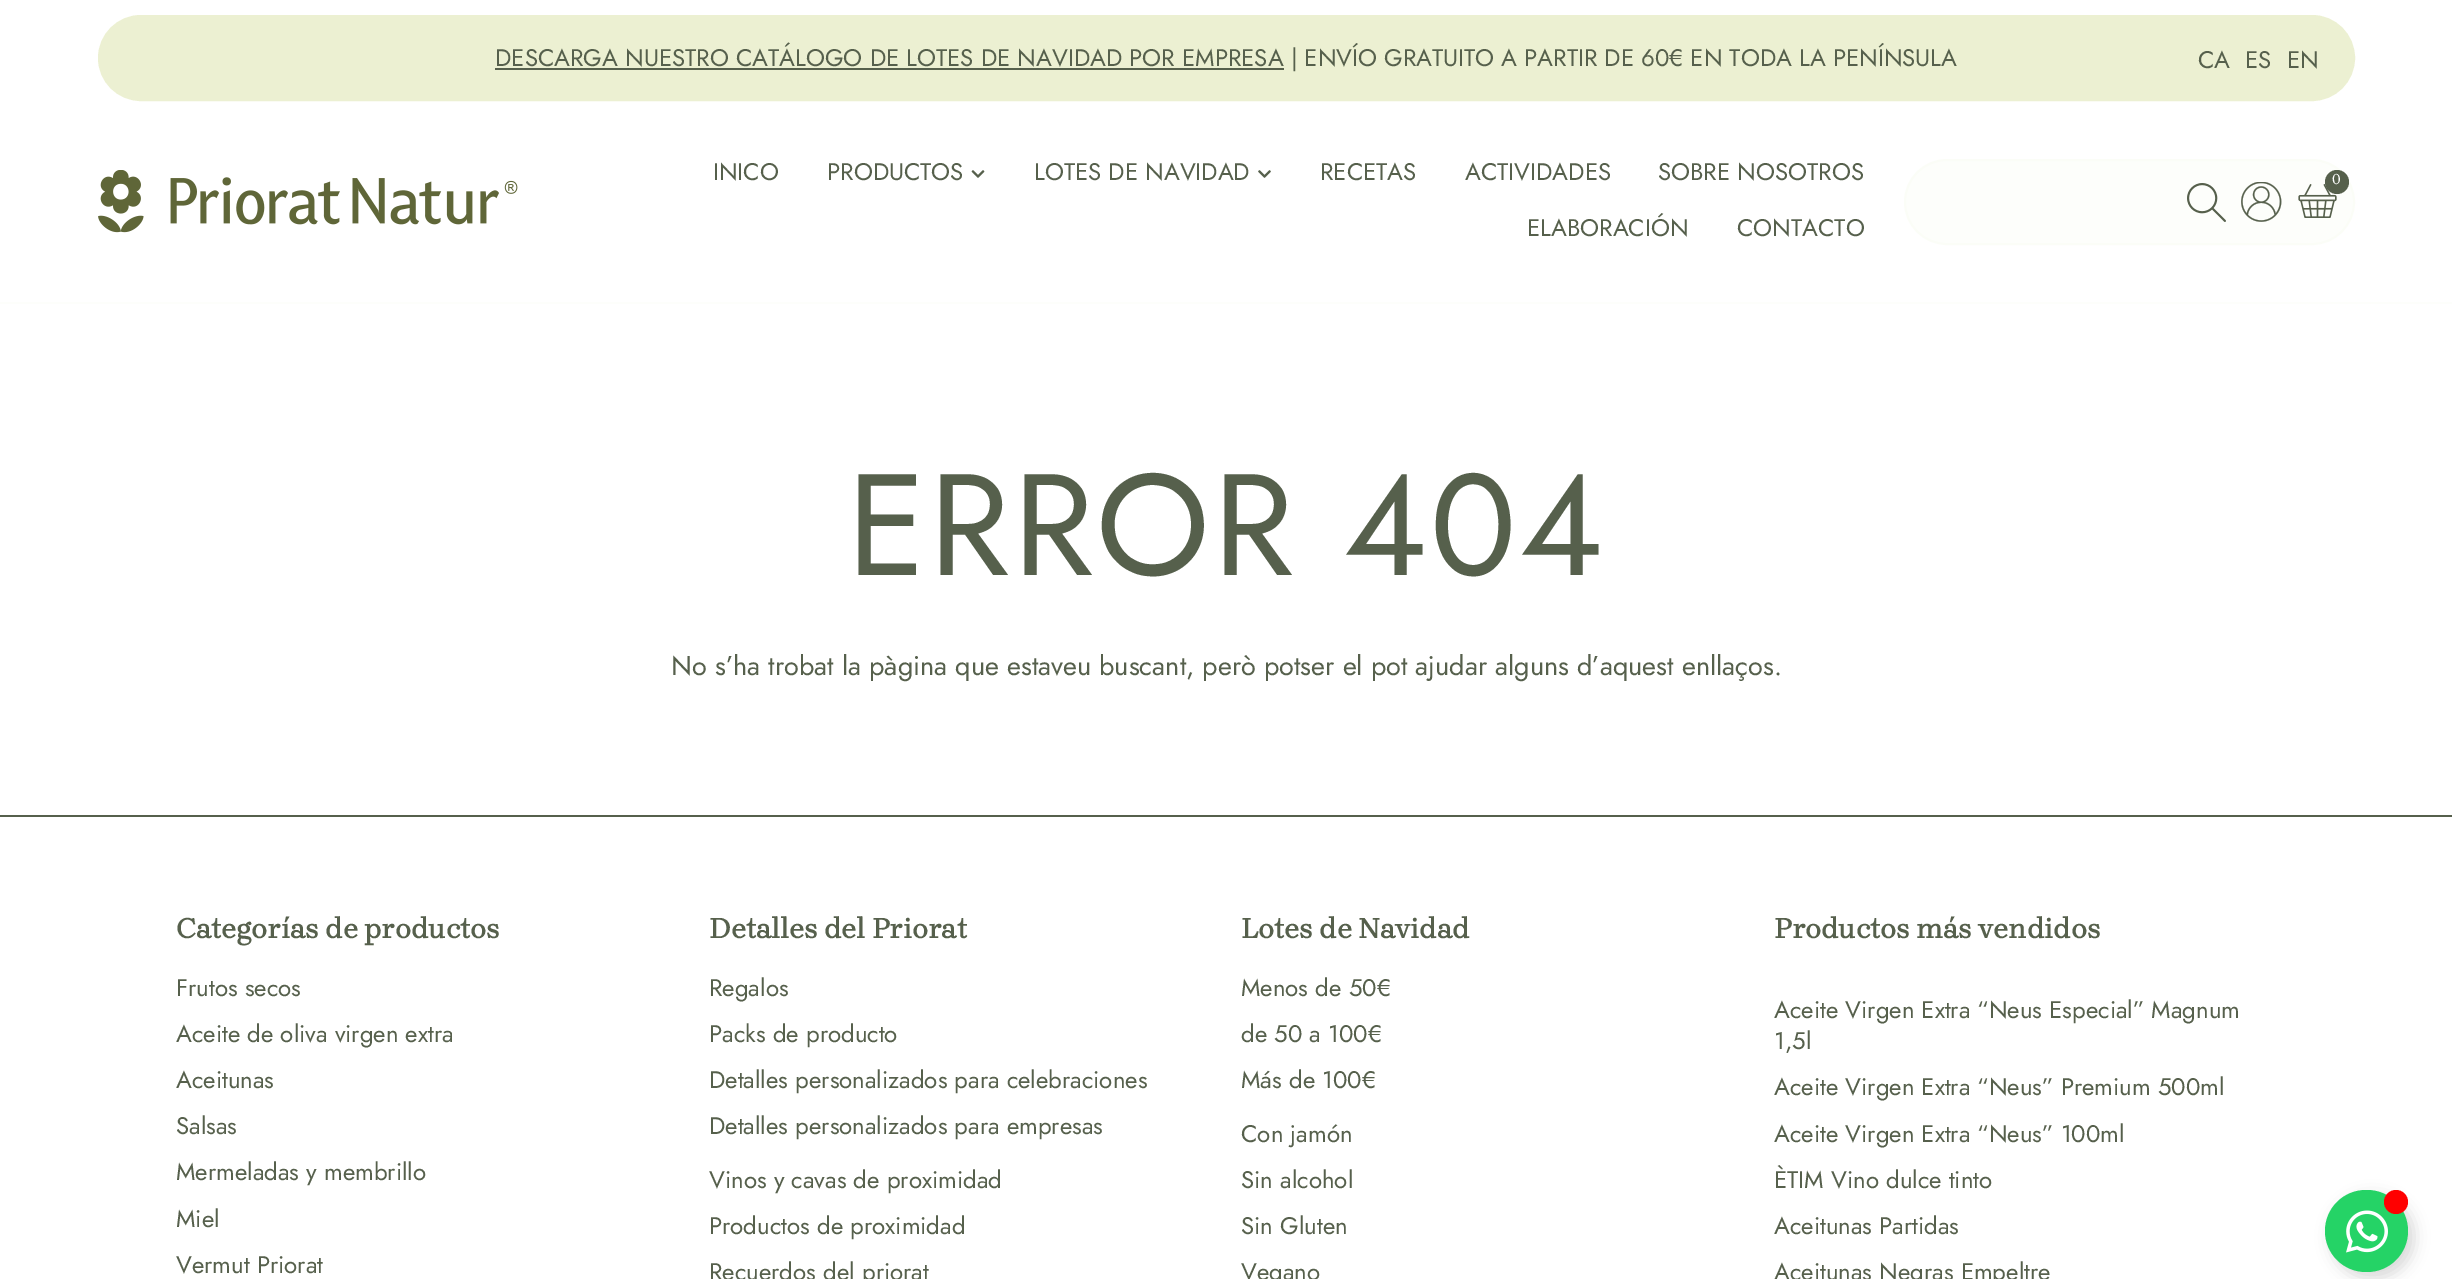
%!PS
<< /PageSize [2452 1279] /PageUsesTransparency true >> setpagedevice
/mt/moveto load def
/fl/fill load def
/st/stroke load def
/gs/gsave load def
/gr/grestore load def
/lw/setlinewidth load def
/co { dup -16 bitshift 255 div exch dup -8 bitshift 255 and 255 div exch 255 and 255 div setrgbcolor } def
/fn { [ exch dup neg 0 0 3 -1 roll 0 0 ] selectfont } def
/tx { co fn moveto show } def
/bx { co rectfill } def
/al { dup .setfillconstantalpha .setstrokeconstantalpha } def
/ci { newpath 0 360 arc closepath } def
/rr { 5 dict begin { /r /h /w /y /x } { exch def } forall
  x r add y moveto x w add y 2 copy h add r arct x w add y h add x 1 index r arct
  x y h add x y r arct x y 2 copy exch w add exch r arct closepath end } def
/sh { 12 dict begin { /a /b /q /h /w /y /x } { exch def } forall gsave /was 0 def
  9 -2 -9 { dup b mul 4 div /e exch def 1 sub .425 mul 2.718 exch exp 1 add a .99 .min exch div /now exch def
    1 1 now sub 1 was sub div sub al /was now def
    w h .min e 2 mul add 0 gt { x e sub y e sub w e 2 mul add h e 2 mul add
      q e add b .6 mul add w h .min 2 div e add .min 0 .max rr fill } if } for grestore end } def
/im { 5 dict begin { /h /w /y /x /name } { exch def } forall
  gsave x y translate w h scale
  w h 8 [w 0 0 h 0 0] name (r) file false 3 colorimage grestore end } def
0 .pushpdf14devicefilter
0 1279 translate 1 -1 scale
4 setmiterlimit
0 0 2452 1279 16#FFFFFF bx
0 302 2452 2 16#FDFEFB bx
16#ECF0D2 co
99 16 2255 84 42 rr gs fl gr
2 lw
st
495 68 789 2 16#56604C bx
(media/1.raw) 98 170 420 63 im
(media/2.raw) 971 170 14 8 im
(media/3.raw) 1258 170 13 8 im
16#FDFEFB co
1905 160 449 84 42 rr gs fl gr
16#FBFDF7 co
st
(media/4.raw) 2298 184 39 34 im
16#56604C co
2337 182 12 ci fl
(media/5.raw) 2187 183 39 39 im
(media/6.raw) 2241 182 41 40 im
0 815 2452 2 16#56604C bx
16#000000 co
2331 1196 83 82 41 7.5 .15 sh
16#25D366 co
2325 1190 83 82 41 rr fl
(media/7.raw) 2346 1210 42 43 im
16#FF0000 co
2396 1202 12 ci fl
(DESCARGA NUESTRO CATÁLOGO DE LOTES DE NAVIDAD POR EMPRESA | ENVÍO GRATUITO A PARTIR DE 60€ EN TODA LA PENÍNSULA) 495 66 /Jost-Regular 24 16#56604C tx
(CA) 2198 68 /Jost-Regular 24 16#56604C tx
(ES) 2245 68 /Jost-Regular 24 16#56604C tx
(EN) 2287 68 /Jost-Regular 24 16#56604C tx
(INICO) 713 180 /Jost-Regular 24 16#56604C tx
(PRODUCTOS) 827 180 /Jost-Regular 24 16#56604C tx
(LOTES DE NAVIDAD) 1034 180 /Jost-Regular 24 16#56604C tx
(RECETAS) 1320 180 /Jost-Regular 24 16#56604C tx
(ACTIVIDADES) 1465 180 /Jost-Regular 24 16#56604C tx
(SOBRE NOSOTROS) 1658 180 /Jost-Regular 24 16#56604C tx
(ELABORACIÓN) 1527 236 /Jost-Regular 24 16#56604C tx
(CONTACTO) 1737 236 /Jost-Regular 24 16#56604C tx
(0) 2332 184 /Brygada1918-Regular 15 16#FFFFFF tx
/Jost-Regular 144 fn
16#56604C co
847 575 mt 3 0 (ERROR 404) ashow
(No s’ha trobat la pàgina que estaveu buscant, però potser el pot ajudar alguns d’aquest enllaços.) 671 675 /Jost-Regular 27 16#56604C tx
(Categorías de productos) 176 938 /Brygada1918-Bold 28.75 16#56604C tx
(Frutos secos) 176 996 /Jost-Regular 24 16#56604C tx
(Aceite de oliva virgen extra) 176 1042 /Jost-Regular 24 16#56604C tx
(Aceitunas) 176 1088 /Jost-Regular 24 16#56604C tx
(Salsas) 176 1134 /Jost-Regular 24 16#56604C tx
(Mermeladas y membrillo) 176 1180 /Jost-Regular 24 16#56604C tx
(Miel) 176 1227 /Jost-Regular 24 16#56604C tx
(Vermut Priorat) 176 1273 /Jost-Regular 24 16#56604C tx
(Detalles del Priorat) 709 938 /Brygada1918-Bold 28.75 16#56604C tx
(Regalos) 709 996 /Jost-Regular 24 16#56604C tx
(Packs de producto) 709 1042 /Jost-Regular 24 16#56604C tx
(Detalles personalizados para celebraciones) 709 1088 /Jost-Regular 24 16#56604C tx
(Detalles personalizados para empresas) 709 1134 /Jost-Regular 24 16#56604C tx
(Vinos y cavas de proximidad) 709 1188 /Jost-Regular 24 16#56604C tx
(Productos de proximidad) 709 1234 /Jost-Regular 24 16#56604C tx
(Recuerdos del priorat) 709 1280 /Jost-Regular 24 16#56604C tx
(Lotes de Navidad) 1241 938 /Brygada1918-Bold 28.75 16#56604C tx
(Menos de 50€) 1241 996 /Jost-Regular 24 16#56604C tx
(de 50 a 100€) 1241 1042 /Jost-Regular 24 16#56604C tx
(Más de 100€) 1241 1088 /Jost-Regular 24 16#56604C tx
(Con jamón) 1241 1142 /Jost-Regular 24 16#56604C tx
(Sin alcohol) 1241 1188 /Jost-Regular 24 16#56604C tx
(Sin Gluten) 1241 1234 /Jost-Regular 24 16#56604C tx
(Vegano) 1241 1280 /Jost-Regular 24 16#56604C tx
(Productos más vendidos) 1774 938 /Brygada1918-Bold 28.75 16#56604C tx
(Aceite Virgen Extra “Neus Especial” Magnum) 1774 1018 /Jost-Regular 24 16#56604C tx
(1,5l) 1774 1049 /Jost-Regular 24 16#56604C tx
(Aceite Virgen Extra “Neus” Premium 500ml) 1774 1095 /Jost-Regular 24 16#56604C tx
(Aceite Virgen Extra “Neus” 100ml) 1774 1142 /Jost-Regular 24 16#56604C tx
(ÈTIM Vino dulce tinto) 1774 1188 /Jost-Regular 24 16#56604C tx
(Aceitunas Partidas) 1774 1234 /Jost-Regular 24 16#56604C tx
(Aceitunas Negras Empeltre) 1774 1280 /Jost-Regular 24 16#56604C tx
.poppdf14devicefilter showpage
